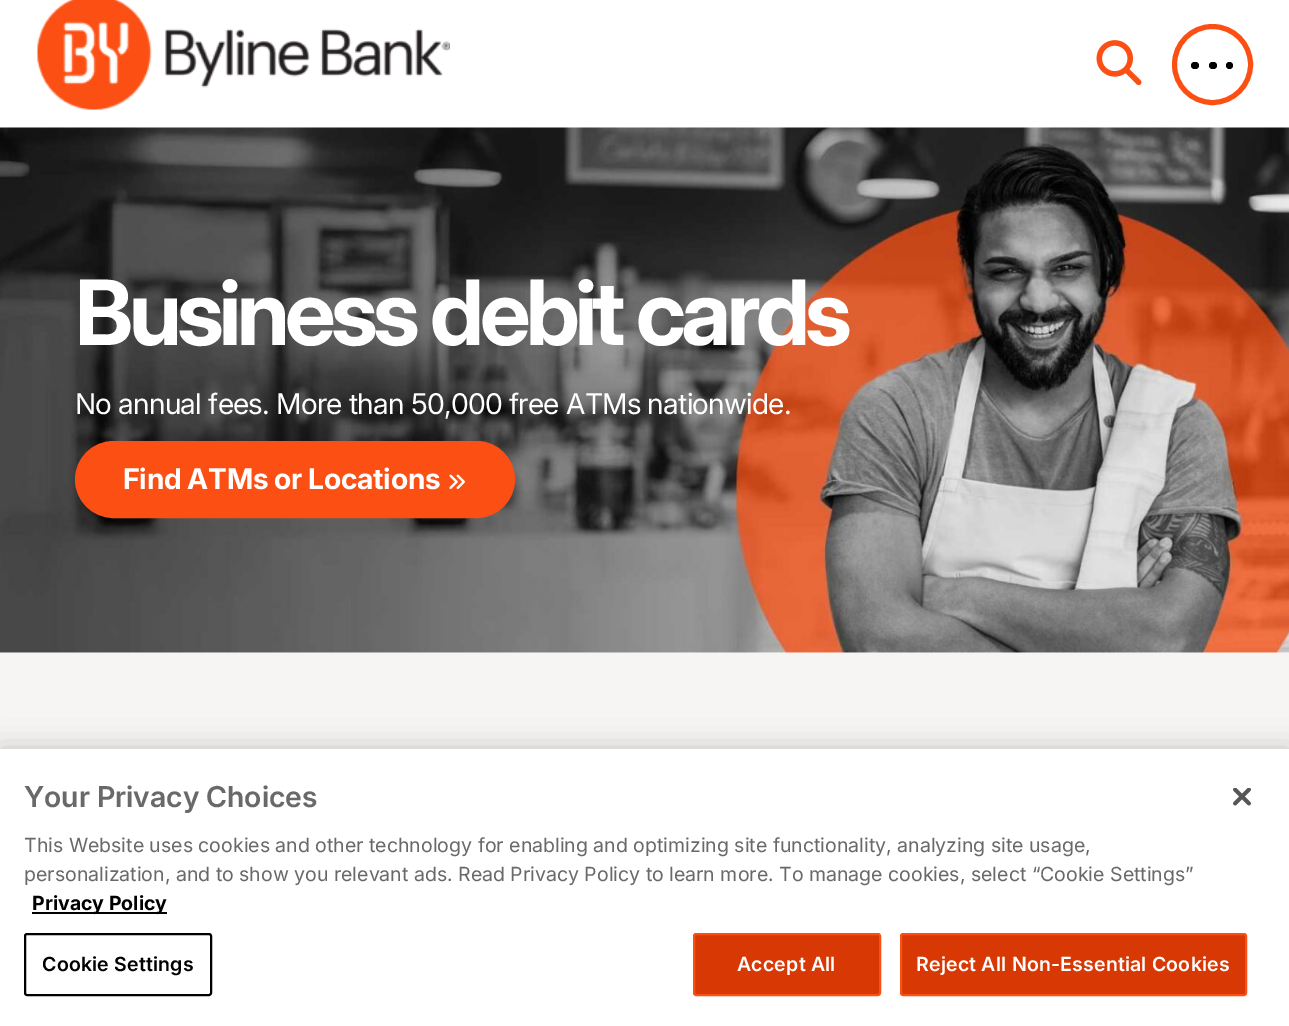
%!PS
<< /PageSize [1289 1026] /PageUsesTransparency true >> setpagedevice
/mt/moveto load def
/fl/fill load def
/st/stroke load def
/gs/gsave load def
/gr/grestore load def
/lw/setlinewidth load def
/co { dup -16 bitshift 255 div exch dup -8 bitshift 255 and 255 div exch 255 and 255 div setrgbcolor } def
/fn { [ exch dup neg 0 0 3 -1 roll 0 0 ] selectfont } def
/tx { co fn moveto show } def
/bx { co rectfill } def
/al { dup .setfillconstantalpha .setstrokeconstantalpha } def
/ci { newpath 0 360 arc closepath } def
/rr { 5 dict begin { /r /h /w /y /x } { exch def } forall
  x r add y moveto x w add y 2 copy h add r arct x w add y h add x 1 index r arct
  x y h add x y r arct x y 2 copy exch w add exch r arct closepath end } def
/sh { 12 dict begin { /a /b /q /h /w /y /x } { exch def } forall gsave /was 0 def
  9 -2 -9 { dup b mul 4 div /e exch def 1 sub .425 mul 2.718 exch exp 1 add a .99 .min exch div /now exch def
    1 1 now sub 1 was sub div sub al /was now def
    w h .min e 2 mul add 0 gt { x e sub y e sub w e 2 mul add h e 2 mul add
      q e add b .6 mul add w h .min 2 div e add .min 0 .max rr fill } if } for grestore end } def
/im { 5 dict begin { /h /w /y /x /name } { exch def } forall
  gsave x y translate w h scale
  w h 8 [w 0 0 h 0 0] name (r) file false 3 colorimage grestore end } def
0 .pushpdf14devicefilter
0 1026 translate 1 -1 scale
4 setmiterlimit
0 0 1289 1026 16#FFFFFF bx
(media/1.raw) 37 0 413 110 im
(media/2.raw) 1096 40 46 46 im
16#FB4F14 co
5 lw
1212.5 64.5 38 ci st
16#000000 co
1191 62 8 7 3.5 rr fl
1209 62 8 7 3.5 rr fl
1229.5 65.5 3.5 ci fl
(media/3.raw) 0 127 1289 526 im
16#FB4F14 co
76.5 442.5 437 74 37 rr gs fl gr
3 lw
st
(media/4.raw) 449 474 16 15 im
0 653 1289 96 16#F6F5F3 bx
16#000000 co
0 749 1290 277 0 13.5 .2 sh
0 749 1289 277 16#FFFFFF bx
32 912 135 2 16#000000 bx
2 lw
25 934 186 61 2 rr st
16#D83803 co
694 934 186 61 2 rr gs fl gr
16#FB4F14 co
st
16#D83803 co
901 934 345 61 2 rr gs fl gr
16#FB4F14 co
st
(media/5.raw) 1233 788 18 18 im
/Inter-Bold 90 fn
16#FFFFFF co
75 345 mt -4.5 0 (Business debit cards) ashow
/Inter-Regular 28.5 fn
75 414 mt -.75 0 (No annual fees. More than 50,000 free ATMs nationwide.) ashow
/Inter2-Bold 28.5 fn
123 489 mt -.3 0 (Find ATMs or Locations) ashow
(Your Privacy Choices) 24 807 /Inter-SemiBold 28.75 16#696969 tx
(This Website uses cookies and other technology for enabling and optimizing site functionality, analyzing site usage,) 24 852 /Inter2-Regular 19.5 16#696969 tx
(personalization, and to show you relevant ads. Read Privacy Policy to learn more. To manage cookies, select “Cookie Settings”) 24 881 /Inter2-Regular 19.5 16#696969 tx
(Privacy Policy) 32 910 /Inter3-Bold 19.5 16#000000 tx
/Inter2-SemiBold 19.5 fn
42 971 mt .2 0 (Cookie Settings) ashow
16#FFFFFF co
737 971 mt .2 0 (Accept All) ashow
916 971 mt .2 0 (Reject All Non-Essential Cookies) ashow
.poppdf14devicefilter showpage
